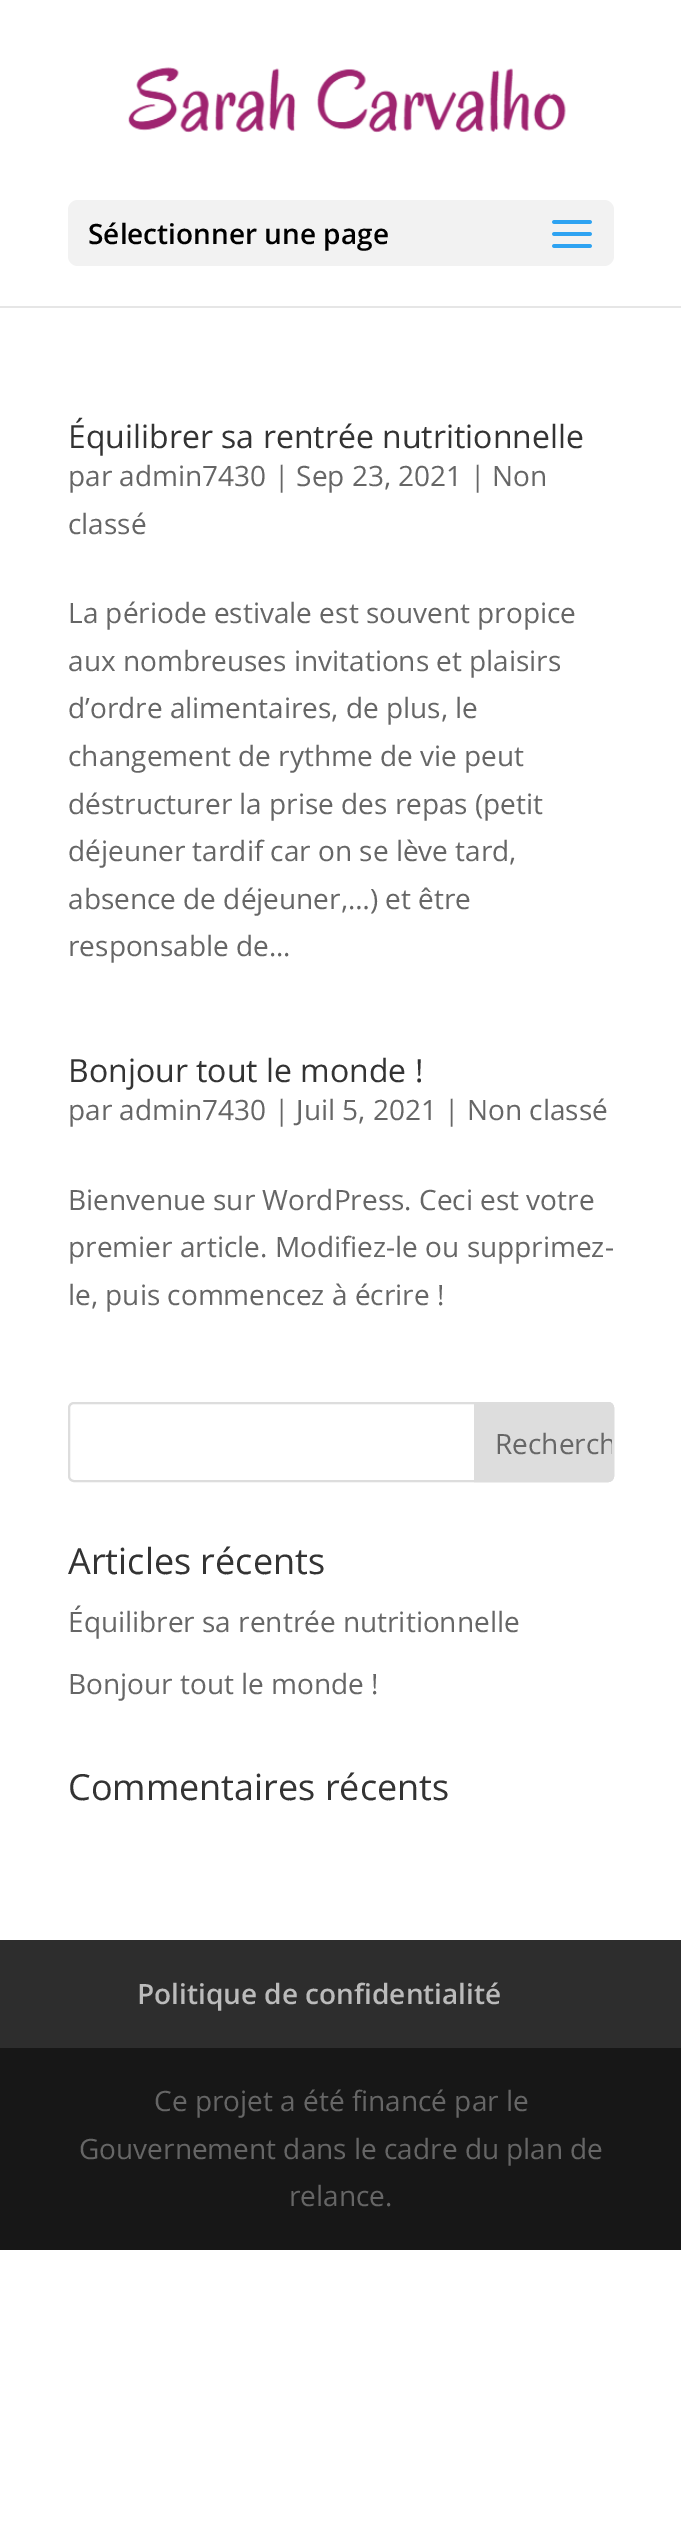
%!PS
<< /PageSize [681 2544] >> setpagedevice
/mt/moveto load def
/li/lineto load def
/ct/curveto load def
/cp/closepath load def
/fl/fill load def
/st/stroke load def
/gs/gsave load def
/gr/grestore load def
/lw/setlinewidth load def
/co { dup -16 bitshift 255 div exch dup -8 bitshift 255 and 255 div exch 255 and 255 div setrgbcolor } def
/fn { [ exch dup neg 0 0 3 -1 roll 0 0 ] selectfont } def
/tx { co fn moveto show } def
/bx { co rectfill } def
/rr { 5 dict begin { /r /h /w /y /x } { exch def } forall
  x r add y moveto x w add y 2 copy h add r arct x w add y h add x 1 index r arct
  x y h add x y r arct x y 2 copy exch w add exch r arct closepath end } def
/im { 5 dict begin { /h /w /y /x /name } { exch def } forall
  gsave x y translate w h scale
  w h 8 [w 0 0 h 0 0] name (r) file false 3 colorimage grestore end } def
0 2544 translate 1 -1 scale
4 setmiterlimit
0 0 681 2544 16#FFFFFF bx
0 306 681 2 16#E6E6E6 bx
(media/1.raw) 128 67 438 66 im
16#F2F2F2 co
68 200 546 66 10 rr fl
(media/2.raw) 552 220 40 28 im
16#DDDDDD co
2 lw
69 1403 544 78 5 rr st
475 1403 mt 608 1403 li 611 1403 613 1405 613 1408 ct 613 1476 li 613 1479 611 1481 608 1481 ct 475 1481 li cp gs fl gr
st
0 1940 681 108 16#2D2D2D bx
0 2048 681 202 16#171717 bx
(Sélectionner une page) 88 244 /OpenSans-SemiBold 28 16#000000 tx
(Équilibrer sa rentrée nutritionnelle) 68 448 /OpenSans-Regular 32 16#333333 tx
(par admin7430 | Sep 23, 2021 | Non) 68 486 /OpenSans-Regular 28 16#666666 tx
(classé) 68 534 /OpenSans-Regular 28 16#666666 tx
(La période estivale est souvent propice) 68 623 /OpenSans-Regular 28 16#666666 tx
(aux nombreuses invitations et plaisirs) 68 671 /OpenSans-Regular 28 16#666666 tx
(d’ordre alimentaires, de plus, le) 68 718 /OpenSans-Regular 28 16#666666 tx
(changement de rythme de vie peut) 68 766 /OpenSans-Regular 28 16#666666 tx
(déstructurer la prise des repas \(petit) 68 814 /OpenSans-Regular 28 16#666666 tx
(déjeuner tardif car on se lève tard,) 68 861 /OpenSans-Regular 28 16#666666 tx
(absence de déjeuner,…\) et être) 68 909 /OpenSans-Regular 28 16#666666 tx
(responsable de...) 68 956 /OpenSans-Regular 28 16#666666 tx
(Bonjour tout le monde !) 68 1082 /OpenSans-Regular 32 16#333333 tx
(par admin7430 | Juil 5, 2021 | Non classé) 68 1120 /OpenSans-Regular 28 16#666666 tx
(Bienvenue sur WordPress. Ceci est votre) 68 1210 /OpenSans-Regular 28 16#666666 tx
(premier article. Modifiez-le ou supprimez-) 68 1257 /OpenSans-Regular 28 16#666666 tx
(le, puis commencez à écrire !) 68 1305 /OpenSans-Regular 28 16#666666 tx
gs
476 1404 mt 608 1404 li 610 1404 612 1406 612 1408 ct 612 1476 li 612 1478 610 1480 608 1480 ct 476 1480 li cp clip newpath
(Recherch) 495 1454 /OpenSans-Regular 28 16#666666 tx
gr
(Articles récents) 68 1574 /OpenSans-Regular 36 16#333333 tx
(Équilibrer sa rentrée nutritionnelle) 68 1632 /OpenSans-Regular 28 16#666666 tx
(Bonjour tout le monde !) 68 1694 /OpenSans-Regular 28 16#666666 tx
(Commentaires récents) 68 1800 /OpenSans-Regular 36 16#333333 tx
(Politique de confidentialité) 137 2004 /OpenSans-SemiBold 28 16#BBBBBB tx
(Ce projet a été financé par le) 154 2111 /OpenSans-Regular 28 16#666666 tx
(Gouvernement dans le cadre du plan de) 79 2159 /OpenSans-Regular 28 16#666666 tx
(relance.) 289 2206 /OpenSans-Regular 28 16#666666 tx
showpage
